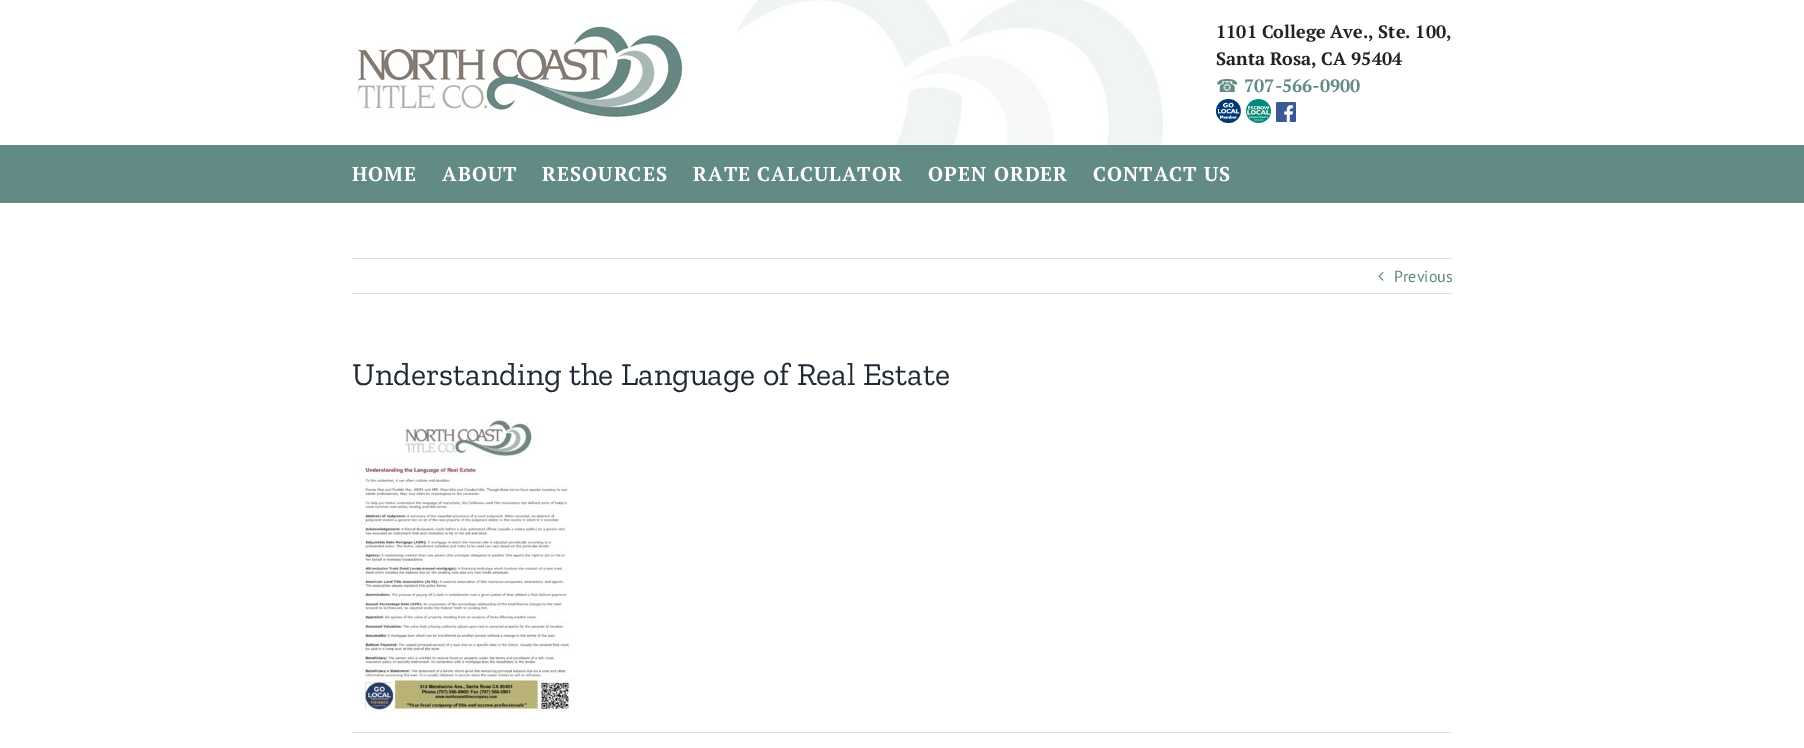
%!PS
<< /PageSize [1804 748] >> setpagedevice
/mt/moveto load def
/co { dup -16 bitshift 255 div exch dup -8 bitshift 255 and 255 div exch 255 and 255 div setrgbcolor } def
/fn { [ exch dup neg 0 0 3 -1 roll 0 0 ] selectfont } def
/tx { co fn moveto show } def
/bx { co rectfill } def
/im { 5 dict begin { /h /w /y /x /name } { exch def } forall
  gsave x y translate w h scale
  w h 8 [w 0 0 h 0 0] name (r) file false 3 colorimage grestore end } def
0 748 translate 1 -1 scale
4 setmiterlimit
0 0 1804 748 16#FFFFFF bx
(media/1.raw) 737 0 426 145 im
(media/2.raw) 355 25 331 94 im
(media/3.raw) 1216 99 25 24 im
(media/4.raw) 1246 99 25 24 im
(media/5.raw) 1276 102 20 20 im
0 145 1804 58 16#638B86 bx
352 258 1100 1 16#E0DEDE bx
352 293 1100 1 16#E0DEDE bx
(media/6.raw) 1378 272 6 9 im
(media/7.raw) 352 418 224 294 im
352 732 1100 1 16#E0DEDE bx
(1101 College Ave., Ste. 100,) 1216 38 /PTSerif-Bold 18 16#232323 tx
(Santa Rosa, CA 95404) 1216 65 /PTSerif-Bold 18 16#232323 tx
(☎) 1216 92 /DejaVuSans-Regular 18 16#638B86 tx
(707-566-0900) 1244 92 /PTSerif-Bold 18 16#638B86 tx
/PTSerif-Bold 20 fn
16#FFFFFF co
352 181 mt 1 0 (HOME) ashow
442 181 mt 1 0 (ABOUT) ashow
542 181 mt 1 0 (RESOURCES) ashow
693 181 mt 1 0 (RATE CALCULATOR) ashow
928 181 mt 1 0 (OPEN ORDER) ashow
1093 181 mt 1 0 (CONTACT US) ashow
(Previous) 1394 282 /PTSans-Regular 16 16#638B86 tx
(Understanding the Language of Real Estate) 352 385 /ZillaSlab-Regular 32 16#212934 tx
showpage
